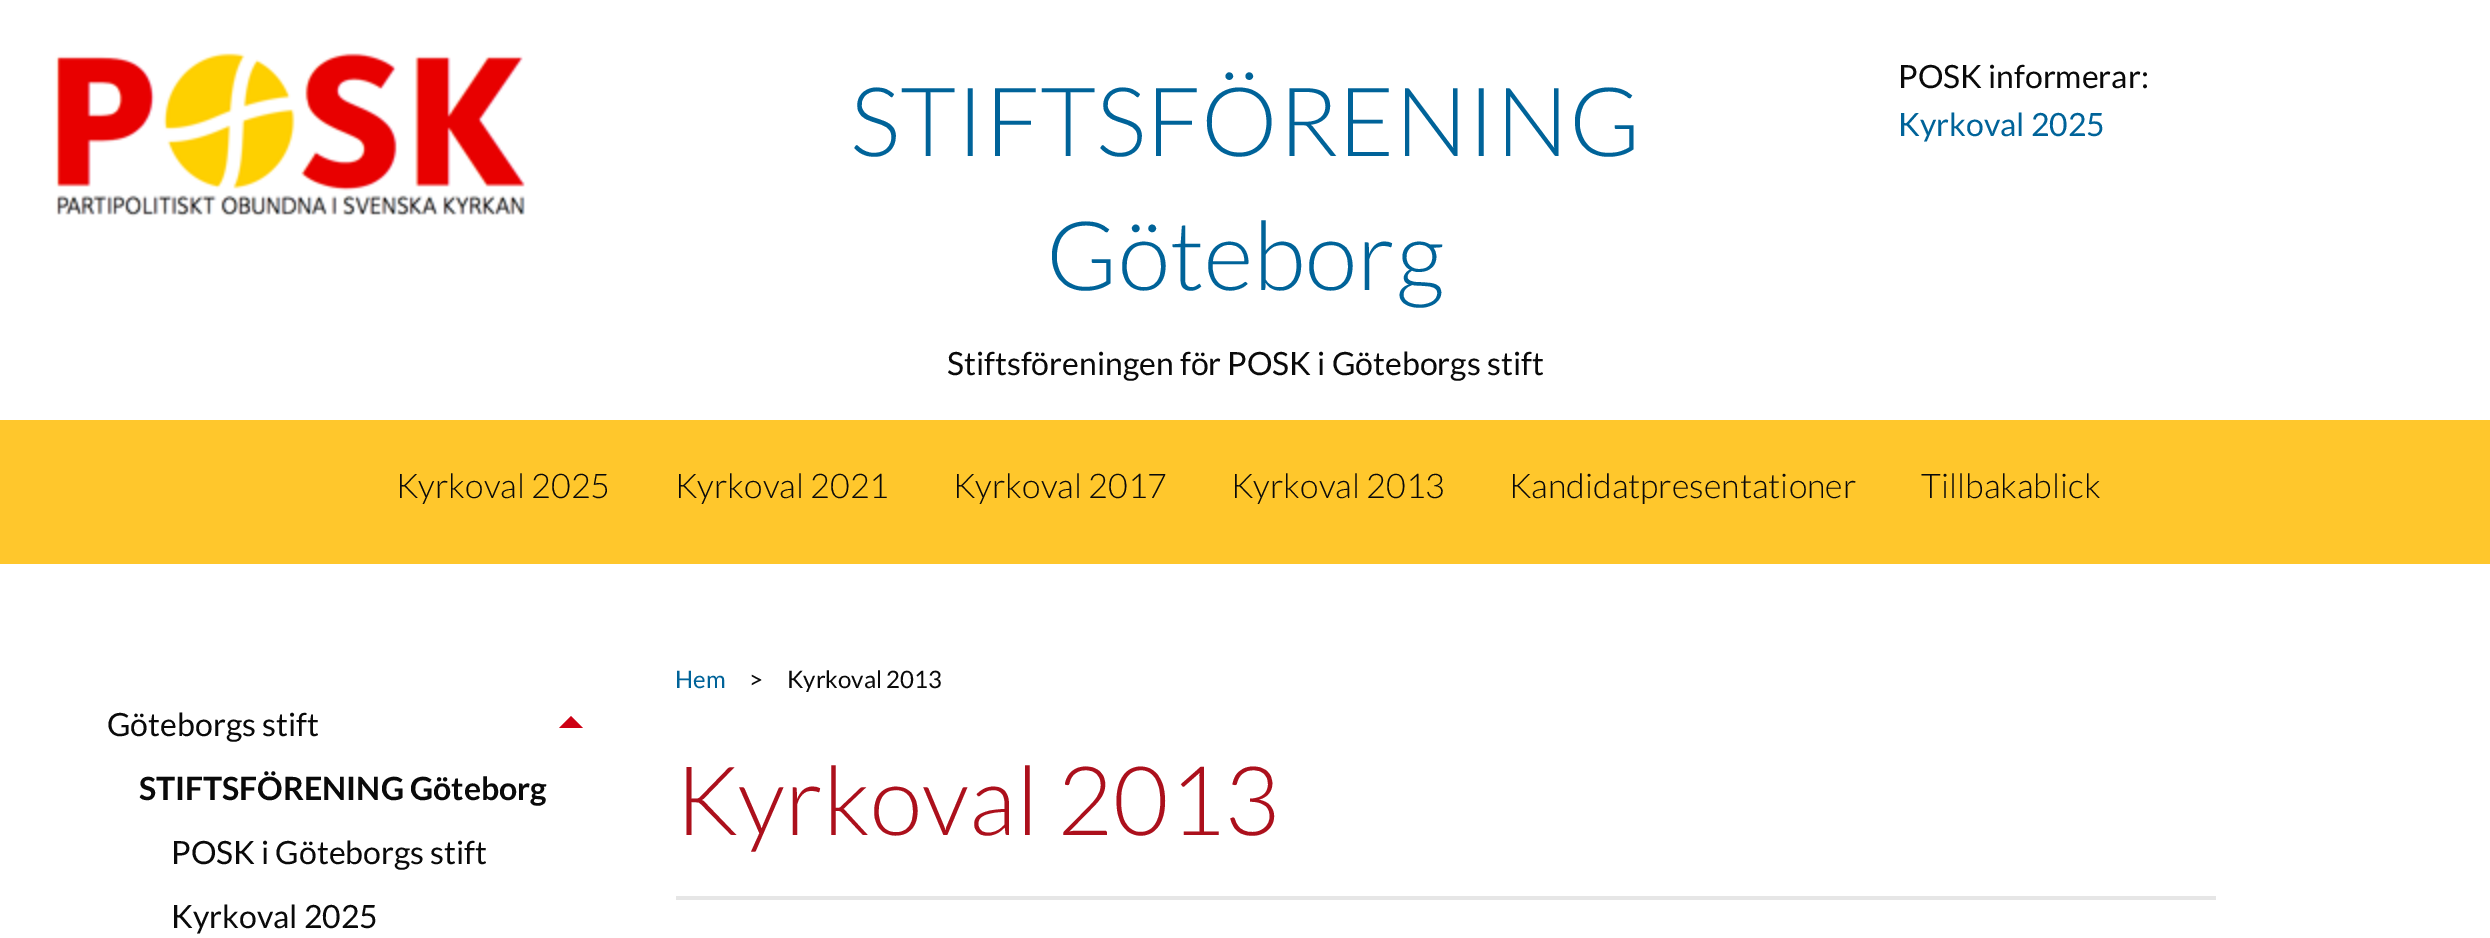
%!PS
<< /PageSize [2490 938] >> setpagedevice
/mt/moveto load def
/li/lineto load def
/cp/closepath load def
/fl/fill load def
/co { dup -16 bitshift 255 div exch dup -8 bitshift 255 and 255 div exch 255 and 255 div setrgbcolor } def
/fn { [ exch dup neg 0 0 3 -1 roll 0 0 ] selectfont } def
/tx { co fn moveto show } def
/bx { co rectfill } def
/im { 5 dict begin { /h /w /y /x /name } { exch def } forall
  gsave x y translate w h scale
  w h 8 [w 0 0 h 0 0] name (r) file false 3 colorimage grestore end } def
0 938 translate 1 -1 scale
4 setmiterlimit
0 0 2490 938 16#FFFFFF bx
(media/1.raw) 55 53 470 164 im
0 420 2490 144 16#FFC72C bx
16#CD0014 co
559 728 mt 583 728 li 571 716 li cp fl
676 896 1540 4 16#E6E6E6 bx
(STIFTSFÖRENING) 850 156 /Lato-Light 96 16#006399 tx
(Göteborg) 1046 290 /Lato-Light 96 16#006399 tx
(Stiftsföreningen för POSK i Göteborgs stift) 947 375 /Lato-Regular 32 16#0A0A0A tx
(POSK informerar:) 1898 88 /Lato-Regular 32 16#0A0A0A tx
(Kyrkoval 2025) 1898 136 /Lato-Regular 32 16#006399 tx
(Kyrkoval 2025) 396 498 /Lato-Light 34 16#0A0A0A tx
(Kyrkoval 2021) 675 498 /Lato-Light 34 16#0A0A0A tx
(Kyrkoval 2017) 953 498 /Lato-Light 34 16#0A0A0A tx
(Kyrkoval 2013) 1231 498 /Lato-Light 34 16#0A0A0A tx
(Kandidatpresentationer) 1509 498 /Lato-Light 34 16#0A0A0A tx
(Tillbakablick) 1921 498 /Lato-Light 34 16#0A0A0A tx
(Göteborgs stift) 107 736 /Lato-Regular 32 16#0A0A0A tx
(STIFTSFÖRENING Göteborg) 139 800 /Lato-Bold 32 16#0A0A0A tx
(POSK i Göteborgs stift) 171 864 /Lato-Regular 32 16#0A0A0A tx
(Kyrkoval 2025) 171 928 /Lato-Regular 32 16#0A0A0A tx
(Hem) 675 688 /Lato-Regular 24 16#006399 tx
(>) 749 688 /Lato-Regular 24 16#0A0A0A tx
(Kyrkoval 2013) 787 688 /Lato-Regular 24 16#0A0A0A tx
(Kyrkoval 2013) 675 835 /Lato-Light 96 16#AC101C tx
showpage
